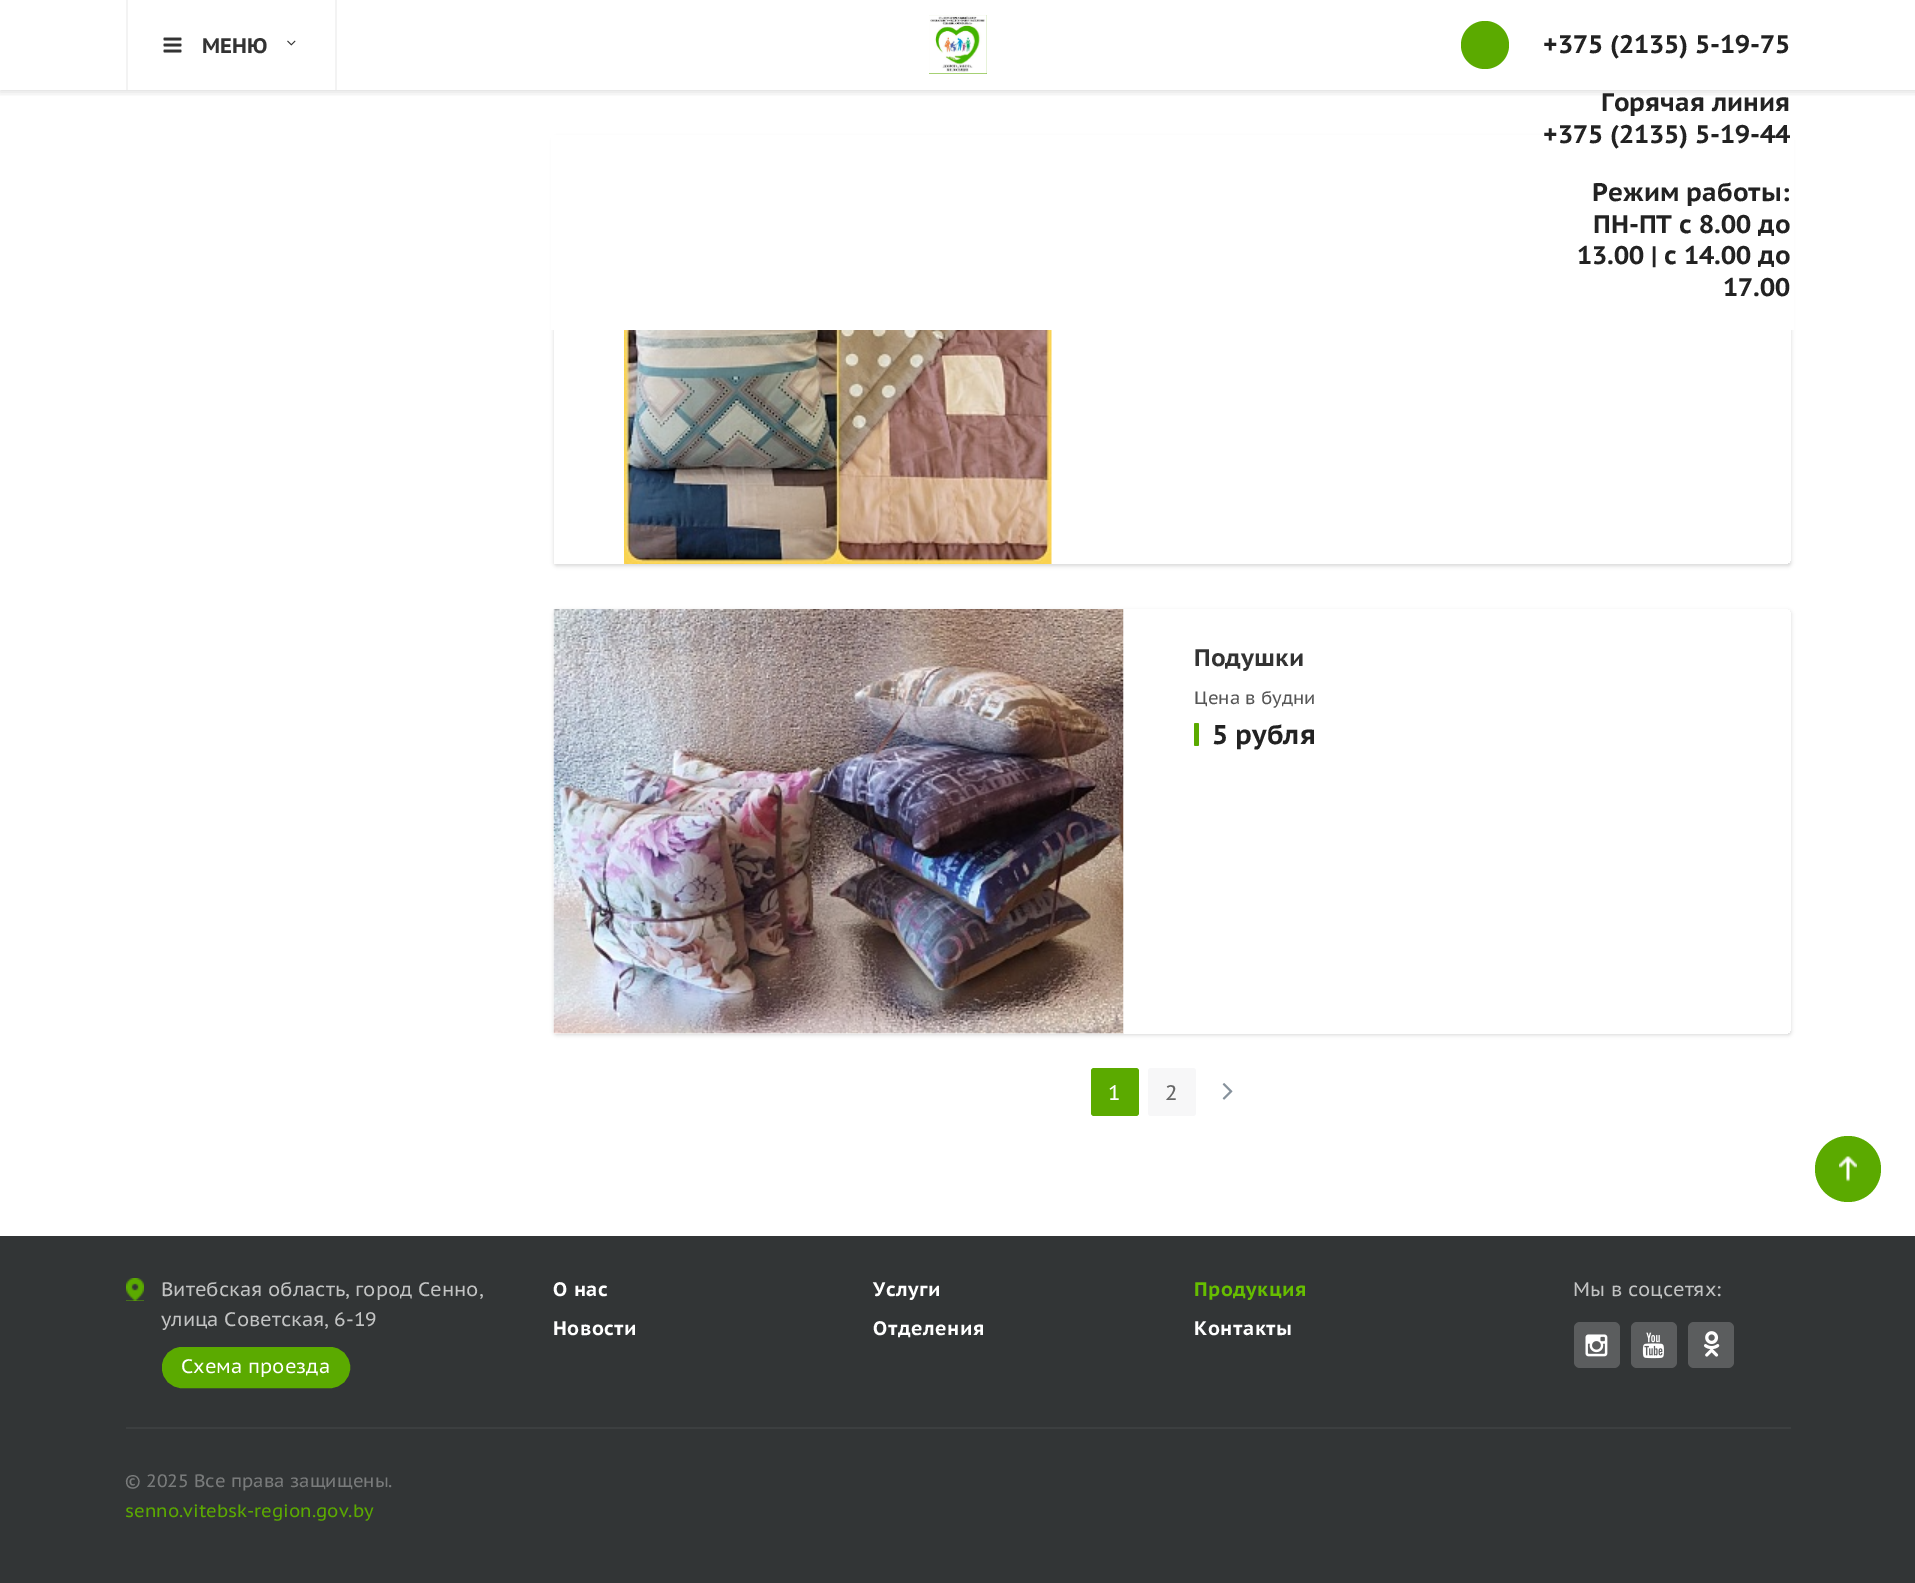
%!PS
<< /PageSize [1915 1583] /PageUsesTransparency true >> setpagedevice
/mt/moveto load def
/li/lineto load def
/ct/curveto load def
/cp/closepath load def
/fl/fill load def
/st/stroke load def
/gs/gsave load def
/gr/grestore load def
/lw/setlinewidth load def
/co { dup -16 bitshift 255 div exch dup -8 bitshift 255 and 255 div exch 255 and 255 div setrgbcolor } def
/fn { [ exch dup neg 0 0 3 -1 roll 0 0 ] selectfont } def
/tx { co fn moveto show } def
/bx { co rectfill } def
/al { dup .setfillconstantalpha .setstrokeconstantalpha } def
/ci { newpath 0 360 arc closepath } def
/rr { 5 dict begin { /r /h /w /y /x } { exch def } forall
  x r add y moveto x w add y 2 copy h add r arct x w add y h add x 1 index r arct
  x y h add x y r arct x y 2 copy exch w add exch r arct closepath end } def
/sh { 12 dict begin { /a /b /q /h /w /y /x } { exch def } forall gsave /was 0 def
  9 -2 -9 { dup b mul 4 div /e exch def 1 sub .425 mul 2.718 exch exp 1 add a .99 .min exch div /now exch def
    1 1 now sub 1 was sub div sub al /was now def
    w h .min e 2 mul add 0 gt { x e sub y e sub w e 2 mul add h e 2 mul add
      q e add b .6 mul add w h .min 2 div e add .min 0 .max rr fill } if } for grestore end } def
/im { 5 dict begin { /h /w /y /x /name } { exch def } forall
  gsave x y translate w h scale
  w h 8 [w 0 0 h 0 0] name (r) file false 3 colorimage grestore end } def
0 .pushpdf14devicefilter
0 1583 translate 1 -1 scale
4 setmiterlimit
0 0 1915 1583 16#FFFFFF bx
gs
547 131 mt 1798 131 li 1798 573 li 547 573 li cp 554 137 mt 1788 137 li 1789.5 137 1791 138.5 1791 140 ct 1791 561 li 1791 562.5 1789.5 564 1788 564 ct 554 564 li cp eoclip newpath
16#000000 co
554 138 1237 428 3 2 .15 sh
gr
551 135 1243 195 16#FFFFFF bx
gs
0 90 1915 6 rectclip
16#000000 co
0 2 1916 90 0 4 .14 sh
gr
335 0 2 90 16#F3F3F3 bx
126 0 2 90 16#F3F3F3 bx
(media/1.raw) 163 37 19 16 im
(media/2.raw) 287 40 9 6 im
929 15 58 59 16#5BAA00 bx
(media/3.raw) 929 15 58 59 im
1485 45 24 ci fl
(media/4.raw) 624 330 428 234 im
gs
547 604 mt 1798 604 li 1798 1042 li 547 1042 li cp 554 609 mt 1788 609 li 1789.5 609 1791 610.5 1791 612 ct 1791 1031 li 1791 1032.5 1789.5 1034 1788 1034 ct 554 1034 li cp eoclip newpath
16#000000 co
554 611 1237 424 3 2 .15 sh
gr
(media/5.raw) 553 609 571 425 im
1194 723 5 23 1.5 rr fl
1091 1068 48 48 3 rr fl
16#F7F7F8 co
1148 1068 48 48 3 rr fl
(media/6.raw) 1222 1083 11 17 im
16#5BAA00 co
1848 1169 33 ci fl
(media/7.raw) 1839 1156 18 26 im
0 1236 1915 347 16#323536 bx
126 1278 18 23 16#5BAA00 bx
(media/8.raw) 126 1278 18 23 im
163 1348 186 39 19 rr gs fl gr
2 lw
st
16#5B5D5E co
1574 1322 46 46 6 rr fl
(media/9.raw) 1585 1334 23 23 im
1631 1322 46 46 6 rr fl
(media/10.raw) 1642 1332 22 27 im
1688 1322 46 46 6 rr fl
(media/11.raw) 1704 1331 16 26 im
126 1427 1665 2 16#3C3F40 bx
(МЕНЮ) 202 53 /PTSansCaption-Bold 21 16#333333 tx
(+375 \(2135\) 5-19-75) 1543 53 /PTSansCaption-Bold 25.5 16#222222 tx
(Горячая линия) 1601 111 /PTSansCaption-Bold 25.5 16#222222 tx
(+375 \(2135\) 5-19-44) 1543 143 /PTSansCaption-Bold 25.5 16#222222 tx
(Режим работы:) 1592 201 /PTSansCaption-Bold 25.5 16#222222 tx
(ПН-ПТ с 8.00 до) 1593 233 /PTSansCaption-Bold 25.5 16#222222 tx
(13.00 | с 14.00 до) 1577 264 /PTSansCaption-Bold 25.5 16#222222 tx
(17.00) 1723 296 /PTSansCaption-Bold 25.5 16#222222 tx
(Подушки) 1194 666 /PTSansCaption-Bold 24 16#333333 tx
(Цена в будни) 1194 704 /PTSansCaption-Regular 18 16#555555 tx
(5 рубля) 1212 744 /PTSansCaption-Bold 27 16#222222 tx
(1) 1108 1100 /PTSansCaption-Regular 21 16#FFFFFF tx
(2) 1165 1100 /PTSansCaption-Regular 21 16#666666 tx
(Витебская область, город Сенно,) 161 1296 /PTSansCaption-Regular 19.5 16#C2C3C3 tx
(улица Советская, 6-19) 161 1326 /PTSansCaption-Regular 19.5 16#C2C3C3 tx
(Схема проезда) 181 1373 /PTSansCaption-Regular 19.5 16#FFFFFF tx
/PTSansCaption-Bold 19.5 fn
553 1296 mt .5 0 (О нас) ashow
873 1296 mt .5 0 (Услуги) ashow
16#66BE00 co
1194 1296 mt .5 0 (Продукция) ashow
16#FFFFFF co
553 1335 mt .5 0 (Новости) ashow
873 1335 mt .5 0 (Отделения) ashow
1194 1335 mt .5 0 (Контакты) ashow
(Мы в соцсетях:) 1573 1296 /PTSansCaption-Regular 19.5 16#C2C3C3 tx
(© 2025 Все права защищены.) 125 1487 /PTSansCaption-Regular 18 16#797B7B tx
(senno.vitebsk-region.gov.by) 125 1517 /PTSansCaption-Regular 18 16#5BAA00 tx
.poppdf14devicefilter showpage
